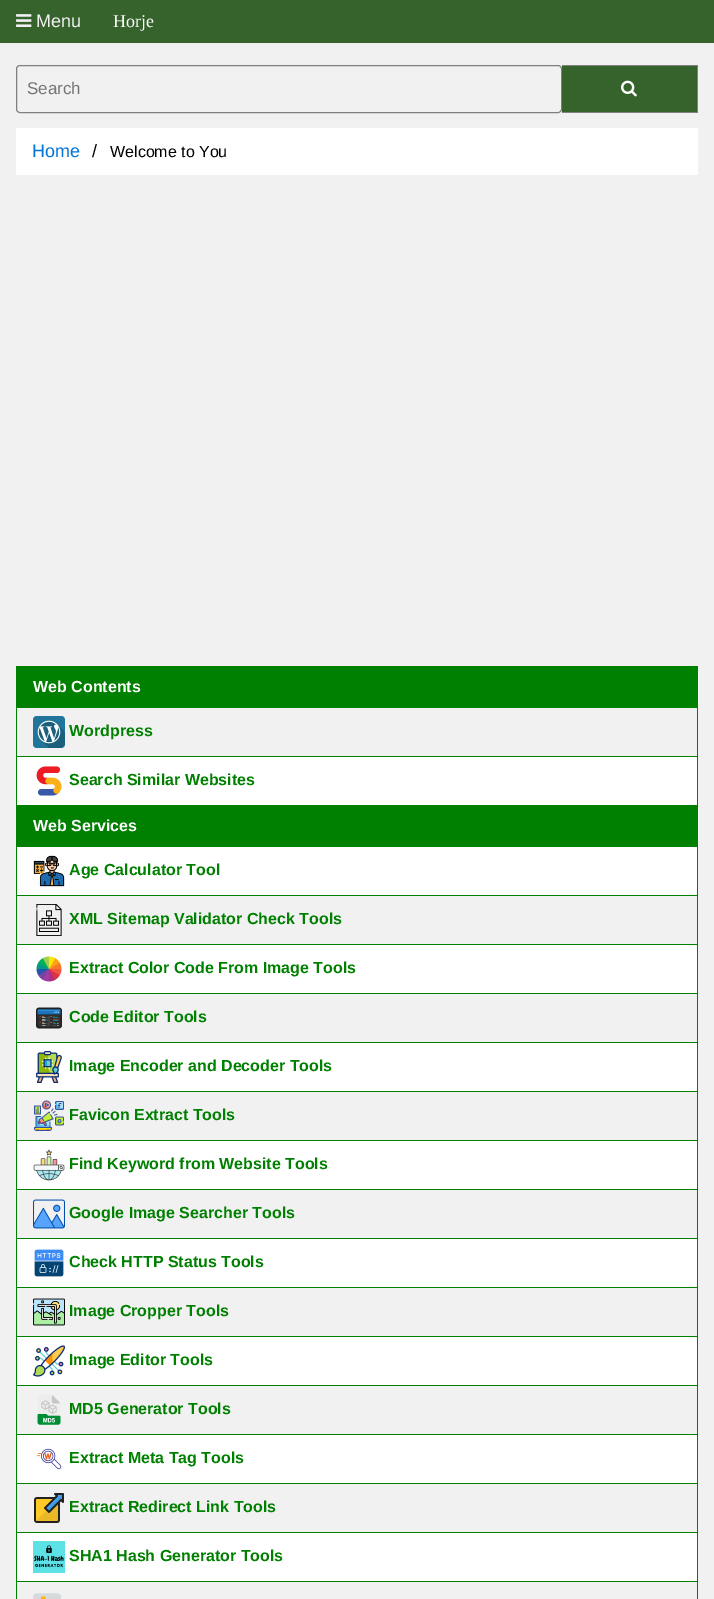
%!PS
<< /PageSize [714 1599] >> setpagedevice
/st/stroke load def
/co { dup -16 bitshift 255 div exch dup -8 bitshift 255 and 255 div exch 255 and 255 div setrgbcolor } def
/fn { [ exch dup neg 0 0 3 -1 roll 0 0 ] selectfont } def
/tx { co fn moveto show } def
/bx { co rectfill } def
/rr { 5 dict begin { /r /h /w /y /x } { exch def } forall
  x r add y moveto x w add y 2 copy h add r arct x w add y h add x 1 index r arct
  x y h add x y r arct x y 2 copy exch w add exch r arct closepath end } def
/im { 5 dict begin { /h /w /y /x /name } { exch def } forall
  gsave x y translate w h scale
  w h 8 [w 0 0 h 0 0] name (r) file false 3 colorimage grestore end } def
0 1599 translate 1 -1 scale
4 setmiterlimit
0 0 714 1599 16#F1F1F1 bx
0 0 714 43 16#36632C bx
(media/1.raw) 16 14 16 13 im
16#808080 co
16.5 65.5 545 47 3.5 rr st
562 66 135 46 16#36632C bx
562 65 136 1 16#808080 bx
697 65 1 48 16#808080 bx
562 112 136 1 16#808080 bx
(media/2.raw) 621 80 16 17 im
16 128 682 47 16#FFFFFF bx
17 757 680 824 16#FFFFFF bx
17 667 680 40 16#008000 bx
16 666 682 1 16#008000 bx
16 707 682 1 16#008000 bx
16 756 682 1 16#008000 bx
16 805 682 1 16#008000 bx
16 846 682 1 16#008000 bx
16 895 682 1 16#008000 bx
16 944 682 1 16#008000 bx
16 993 682 1 16#008000 bx
16 1042 682 1 16#008000 bx
16 1091 682 1 16#008000 bx
16 1140 682 1 16#008000 bx
16 1189 682 1 16#008000 bx
16 1238 682 1 16#008000 bx
16 1287 682 1 16#008000 bx
16 1336 682 1 16#008000 bx
16 1385 682 1 16#008000 bx
16 1434 682 1 16#008000 bx
16 1483 682 1 16#008000 bx
16 1532 682 1 16#008000 bx
16 1581 682 1 16#008000 bx
697 1581 1 18 16#008000 bx
697 1532 1 50 16#008000 bx
697 1483 1 50 16#008000 bx
697 1434 1 50 16#008000 bx
697 1385 1 50 16#008000 bx
697 1336 1 50 16#008000 bx
697 1287 1 50 16#008000 bx
697 1238 1 50 16#008000 bx
697 1189 1 50 16#008000 bx
697 1140 1 50 16#008000 bx
697 1091 1 50 16#008000 bx
697 1042 1 50 16#008000 bx
697 993 1 50 16#008000 bx
697 944 1 50 16#008000 bx
697 895 1 50 16#008000 bx
697 846 1 50 16#008000 bx
697 805 1 42 16#008000 bx
697 756 1 50 16#008000 bx
697 707 1 50 16#008000 bx
697 666 1 42 16#008000 bx
16 1581 1 18 16#008000 bx
16 1532 1 50 16#008000 bx
16 1483 1 50 16#008000 bx
16 1434 1 50 16#008000 bx
16 1385 1 50 16#008000 bx
16 1336 1 50 16#008000 bx
16 1287 1 50 16#008000 bx
16 1238 1 50 16#008000 bx
16 1189 1 50 16#008000 bx
16 1140 1 50 16#008000 bx
16 1091 1 50 16#008000 bx
16 1042 1 50 16#008000 bx
16 993 1 50 16#008000 bx
16 944 1 50 16#008000 bx
16 895 1 50 16#008000 bx
16 846 1 50 16#008000 bx
16 805 1 42 16#008000 bx
16 756 1 50 16#008000 bx
16 707 1 50 16#008000 bx
16 666 1 42 16#008000 bx
(media/3.raw) 33 716 32 32 im
(media/4.raw) 36 766 26 30 im
17 806 680 40 16#008000 bx
(media/5.raw) 33 855 32 32 im
17 896 680 48 16#F1F1F1 bx
(media/6.raw) 36 904 26 32 im
(media/7.raw) 36 956 26 26 im
17 994 680 48 16#F1F1F1 bx
(media/8.raw) 36 1007 26 22 im
(media/9.raw) 36 1051 26 32 im
17 1092 680 48 16#F1F1F1 bx
(media/10.raw) 34 1100 30 31 im
(media/11.raw) 33 1149 32 32 im
17 1190 680 48 16#F1F1F1 bx
(media/12.raw) 33 1199 32 30 im
(media/13.raw) 34 1249 30 28 im
17 1288 680 48 16#F1F1F1 bx
(media/14.raw) 33 1298 32 28 im
(media/15.raw) 33 1345 32 32 im
17 1386 680 48 16#F1F1F1 bx
(media/16.raw) 37 1395 24 30 im
(media/17.raw) 36 1448 26 22 im
17 1484 680 48 16#F1F1F1 bx
(media/18.raw) 34 1493 30 30 im
(media/19.raw) 33 1541 32 32 im
(media/20.raw) 33 1593 28 6 im
(Menu) 36 27 /LiberationSans-Regular 18 16#F1F1F1 tx
(Horje) 113 27 /LiberationSerif-Regular 18 16#FFFFFF tx
(Search) 27 94 /LiberationSans-Regular 17 16#757575 tx
(Home) 32 157 /LiberationSans-Regular 18 16#0275D8 tx
(/) 92 157 /LiberationSans-Regular 18 16#000000 tx
(Welcome to You) 110 157 /LiberationSans-Regular 16 16#000000 tx
(Web Contents) 33 692 /LiberationSans-Bold 16 16#FFFFFF tx
(Wordpress) 69 736 /LiberationSans-Bold 16 16#008000 tx
(Search Similar Websites) 69 785 /LiberationSans-Bold 16 16#008000 tx
(Web Services) 33 831 /LiberationSans-Bold 16 16#FFFFFF tx
(Age Calculator Tool) 69 875 /LiberationSans-Bold 16 16#008000 tx
(XML Sitemap Validator Check Tools) 69 924 /LiberationSans-Bold 16 16#008000 tx
(Extract Color Code From Image Tools) 69 973 /LiberationSans-Bold 16 16#008000 tx
(Code Editor Tools) 69 1022 /LiberationSans-Bold 16 16#008000 tx
(Image Encoder and Decoder Tools) 69 1071 /LiberationSans-Bold 16 16#008000 tx
(Favicon Extract Tools) 69 1120 /LiberationSans-Bold 16 16#008000 tx
(Find Keyword from Website Tools) 69 1169 /LiberationSans-Bold 16 16#008000 tx
(Google Image Searcher Tools) 69 1218 /LiberationSans-Bold 16 16#008000 tx
(Check HTTP Status Tools) 69 1267 /LiberationSans-Bold 16 16#008000 tx
(Image Cropper Tools) 69 1316 /LiberationSans-Bold 16 16#008000 tx
(Image Editor Tools) 69 1365 /LiberationSans-Bold 16 16#008000 tx
(MD5 Generator Tools) 69 1414 /LiberationSans-Bold 16 16#008000 tx
(Extract Meta Tag Tools) 69 1463 /LiberationSans-Bold 16 16#008000 tx
(Extract Redirect Link Tools) 69 1512 /LiberationSans-Bold 16 16#008000 tx
(SHA1 Hash Generator Tools) 69 1561 /LiberationSans-Bold 16 16#008000 tx
showpage
